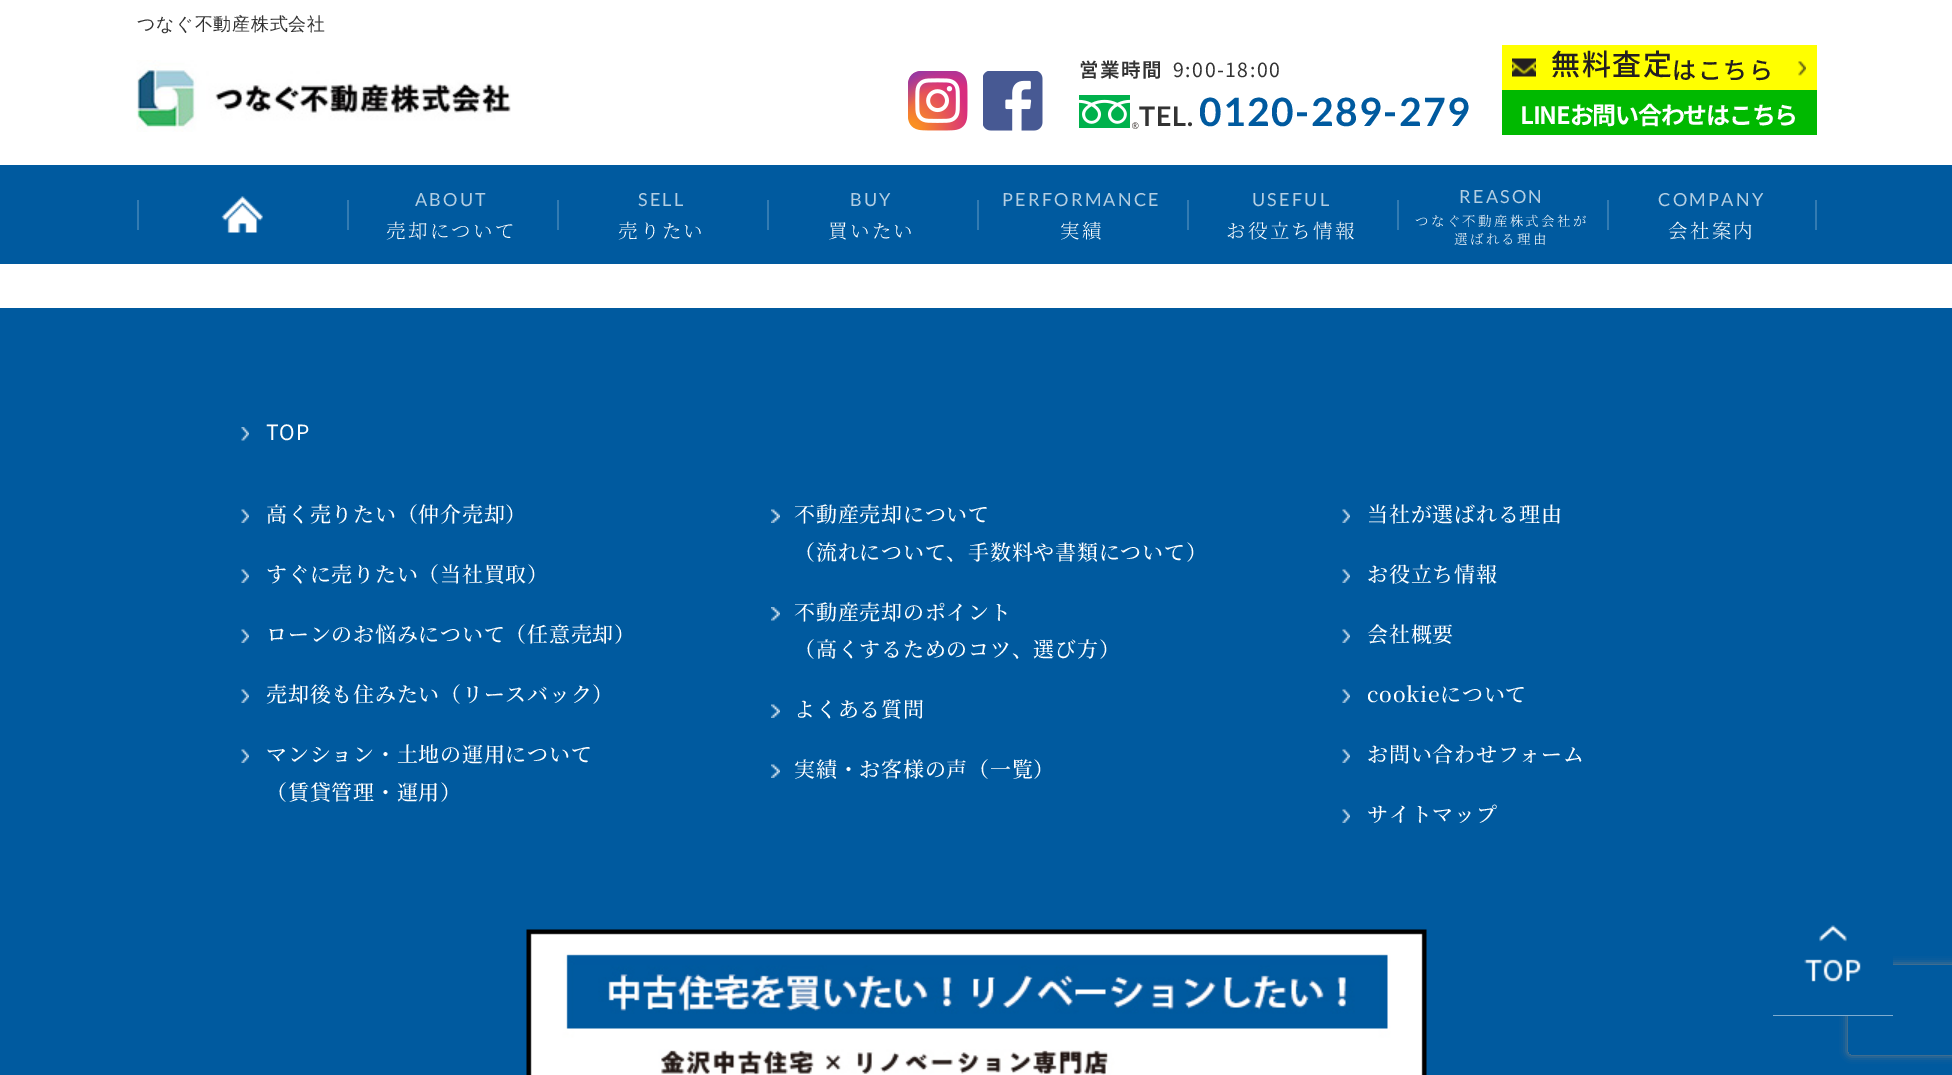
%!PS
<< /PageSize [1952 1075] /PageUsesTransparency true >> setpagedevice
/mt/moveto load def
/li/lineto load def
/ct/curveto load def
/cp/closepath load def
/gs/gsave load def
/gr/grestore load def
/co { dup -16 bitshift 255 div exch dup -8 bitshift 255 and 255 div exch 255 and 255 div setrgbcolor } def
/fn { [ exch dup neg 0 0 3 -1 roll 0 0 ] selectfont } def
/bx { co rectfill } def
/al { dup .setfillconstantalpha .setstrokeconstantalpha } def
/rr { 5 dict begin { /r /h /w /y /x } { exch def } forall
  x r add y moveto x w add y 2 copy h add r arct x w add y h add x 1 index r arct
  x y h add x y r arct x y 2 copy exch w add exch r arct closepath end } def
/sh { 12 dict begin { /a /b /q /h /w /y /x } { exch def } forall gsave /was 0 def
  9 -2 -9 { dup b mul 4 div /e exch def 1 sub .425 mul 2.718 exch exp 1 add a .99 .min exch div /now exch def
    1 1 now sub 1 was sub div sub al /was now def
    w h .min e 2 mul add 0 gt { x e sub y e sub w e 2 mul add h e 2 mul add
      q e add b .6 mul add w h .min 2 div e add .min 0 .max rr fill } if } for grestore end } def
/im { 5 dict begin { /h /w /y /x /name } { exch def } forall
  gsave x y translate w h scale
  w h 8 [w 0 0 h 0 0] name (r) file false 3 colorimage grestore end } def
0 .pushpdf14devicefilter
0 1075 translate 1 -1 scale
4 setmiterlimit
0 0 1952 1075 16#FFFFFF bx
(media/1.raw) 136 60 375 72 im
(media/2.raw) 908 71 60 60 im
(media/3.raw) 983 71 60 60 im
(media/4.raw) 1079 95 60 34 im
1502 45 315 45 16#FFFF00 bx
(media/5.raw) 1512 58 24 19 im
(media/6.raw) 1798 61 8 15 im
1502 90 315 45 16#00B900 bx
0 165 1952 99 16#005A9F bx
(media/7.raw) 221 196 42 37 im
137 200 2 30 16#337BB2 bx
347 200 2 30 16#337BB2 bx
557 200 2 30 16#337BB2 bx
767 200 2 30 16#337BB2 bx
977 200 2 30 16#337BB2 bx
1187 200 2 30 16#337BB2 bx
1397 200 2 30 16#337BB2 bx
1607 200 2 30 16#337BB2 bx
1815 200 2 30 16#337BB2 bx
0 308 1952 767 16#005A9F bx
(media/8.raw) 241 427 8 14 im
(media/9.raw) 241 509 8 14 im
(media/9.raw) 241 569 8 14 im
(media/9.raw) 241 629 8 14 im
(media/9.raw) 241 689 8 14 im
(media/9.raw) 241 749 8 14 im
(media/10.raw) 771 509 9 14 im
(media/11.raw) 771 607 9 14 im
(media/10.raw) 771 704 9 14 im
(media/10.raw) 771 764 9 14 im
(media/12.raw) 1342 509 8 14 im
(media/12.raw) 1342 569 8 14 im
(media/12.raw) 1342 629 8 14 im
(media/12.raw) 1342 689 8 14 im
(media/12.raw) 1342 749 8 14 im
(media/12.raw) 1342 809 8 14 im
(media/13.raw) 526 929 901 146 im
gs
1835 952 mt 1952 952 li 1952 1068 li 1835 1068 li cp 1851 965 mt 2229 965 li 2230.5 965 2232 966.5 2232 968 ct 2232 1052 li 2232 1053.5 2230.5 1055 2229 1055 ct 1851 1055 li 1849.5 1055 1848 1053.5 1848 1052 ct 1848 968 li 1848 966.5 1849.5 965 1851 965 ct cp eoclip newpath
16#808080 co
1848 965 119 90 3 4 1 sh
gr
1773 1015 120 1 16#FFFFFF bx
(media/14.raw) 1773 896 120 120 im
/WenQuanYiZenHei-Medium 18 fn
16#333333 co
137 30 mt .75 0 (つなぐ不動産株式会社) ashow
/NotoSansJP-SemiBold 19.5 fn
1079 77 mt 1.5 0 (営業時間) ashow
/NotoSansJP-Regular 19.5 fn
1173 77 mt 1.5 0 (9:00-18:00) ashow
/Lato-Bold 27 fn
1139 126 mt .75 0 (TEL.) ashow
/Lato-Bold 39 fn
16#005A9F co
1199 126 mt 1.5 0 (0120-289-279) ashow
/NotoSansJP-Medium 29 fn
16#231F20 co
1551 75 mt 1.5 0 (無料査定) ashow
/NotoSansJP-Medium 24 fn
1672 79 mt 1.5 0 (はこちら) ashow
/NotoSansJP-Bold 24 fn
16#FFFFFF co
1520 124 mt -1.25 0 (LINEお問い合わせはこちら) ashow
/Lato-Regular 18 fn
16#B3CEE2 co
415 206 mt 2.25 0 (ABOUT) ashow
/NotoSerifJP-Light 19.5 fn
16#FFFFFF co
386 238 mt 2.25 0 (売却について) ashow
/Lato-Regular 18 fn
16#B3CEE2 co
638 206 mt 2.25 0 (SELL) ashow
/NotoSerifJP-Light 19.5 fn
16#FFFFFF co
618 238 mt 2.25 0 (売りたい) ashow
/Lato-Regular 18 fn
16#B3CEE2 co
850 206 mt 2.25 0 (BUY) ashow
/NotoSerifJP-Light 19.5 fn
16#FFFFFF co
828 238 mt 2.25 0 (買いたい) ashow
/Lato-Regular 18 fn
16#B3CEE2 co
1002 206 mt 2.25 0 (PERFORMANCE) ashow
/NotoSerifJP-Light 19.5 fn
16#FFFFFF co
1060 238 mt 2.25 0 (実績) ashow
/Lato-Regular 18 fn
16#B3CEE2 co
1252 206 mt 2.25 0 (USEFUL) ashow
/NotoSerifJP-Light 19.5 fn
16#FFFFFF co
1226 238 mt 2.25 0 (お役立ち情報) ashow
/Lato-Regular 18 fn
16#B3CEE2 co
1459 203 mt 2.25 0 (REASON) ashow
/NotoSerifJP-Light 13.5 fn
16#FFFFFF co
1415 226 mt 2.25 0 (つなぐ不動産株式会社が) ashow
1454 244 mt 2.25 0 (選ばれる理由) ashow
/Lato-Regular 18 fn
16#B3CEE2 co
1658 206 mt 2.25 0 (COMPANY) ashow
/NotoSerifJP-Light 19.5 fn
16#FFFFFF co
1668 238 mt 2.25 0 (会社案内) ashow
/NotoSansCJKJP-Regular 21 fn
266 440 mt .75 0 (TOP) ashow
/NotoSerifJP-Medium 21 fn
266 522 mt .75 0 (高く売りたい（仲介売却）) ashow
266 582 mt .75 0 (すぐに売りたい（当社買取）) ashow
266 642 mt .75 0 (ローンのお悩みについて（任意売却）) ashow
266 702 mt .75 0 (売却後も住みたい（リースバック）) ashow
266 762 mt .75 0 (マンション・土地の運用について) ashow
266 800 mt .75 0 (（賃貸管理・運用）) ashow
794 522 mt .75 0 (不動産売却について) ashow
794 560 mt .75 0 (（流れについて、手数料や書類について）) ashow
794 620 mt .75 0 (不動産売却のポイント) ashow
794 657 mt .75 0 (（高くするためのコツ、選び方）) ashow
794 717 mt .75 0 (よくある質問) ashow
794 777 mt .75 0 (実績・お客様の声（一覧）) ashow
1367 522 mt .75 0 (当社が選ばれる理由) ashow
1367 582 mt .75 0 (お役立ち情報) ashow
1367 642 mt .75 0 (会社概要) ashow
1367 702 mt .75 0 (cookieについて) ashow
1367 762 mt .75 0 (お問い合わせフォーム) ashow
1367 822 mt .75 0 (サイトマップ) ashow
.poppdf14devicefilter showpage
